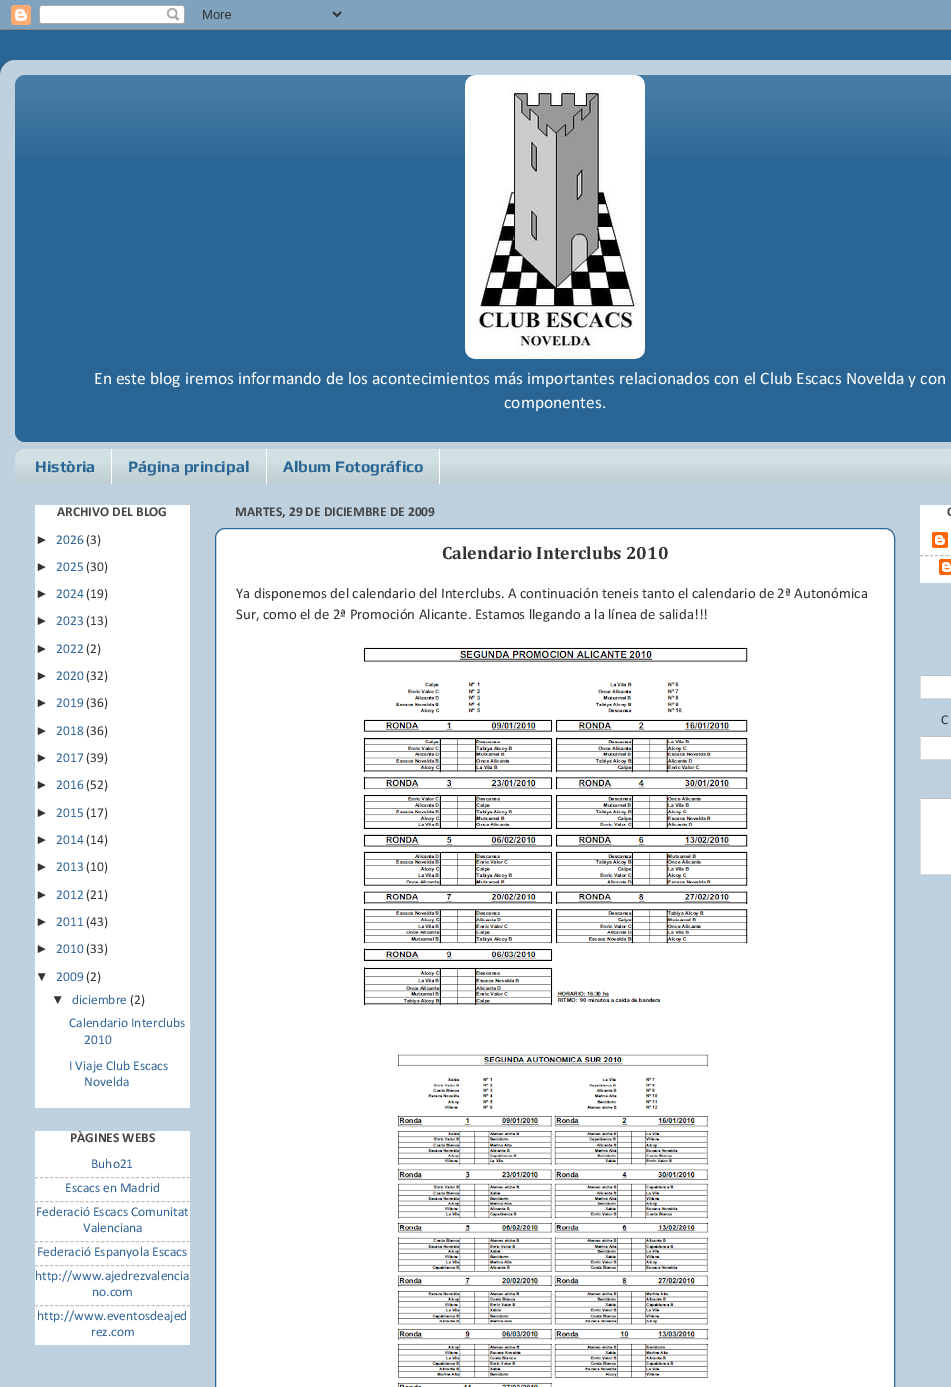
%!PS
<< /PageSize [951 1387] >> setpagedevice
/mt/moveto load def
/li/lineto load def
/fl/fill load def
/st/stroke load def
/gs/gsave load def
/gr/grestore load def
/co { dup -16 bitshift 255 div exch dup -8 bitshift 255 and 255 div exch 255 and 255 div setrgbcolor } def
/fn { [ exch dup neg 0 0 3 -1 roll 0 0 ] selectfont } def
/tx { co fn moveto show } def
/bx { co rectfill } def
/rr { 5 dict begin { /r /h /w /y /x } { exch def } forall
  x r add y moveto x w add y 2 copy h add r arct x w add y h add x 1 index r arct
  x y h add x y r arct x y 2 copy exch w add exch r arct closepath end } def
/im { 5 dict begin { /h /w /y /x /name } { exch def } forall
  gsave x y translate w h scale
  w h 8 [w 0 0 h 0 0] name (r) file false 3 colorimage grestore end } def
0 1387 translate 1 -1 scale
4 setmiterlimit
0 0 951 1387 16#296695 bx
(media/1.raw) 0 0 951 30 im
(media/2.raw) 0 60 951 1327 im
15 75 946 367 10 rr fl
(media/3.raw) 15 75 936 84 im
(media/4.raw) 465 75 180 284 im
16#D0E0E3 co
15 449 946 35 10 rr fl
(media/5.raw) 15 463 936 21 im
111 449 1 35 16#FFFFFF bx
266 449 1 35 16#FFFFFF bx
439 449 1 35 16#FFFFFF bx
35 505 155 603 16#FFFFFF bx
35 1131 155 214 16#FFFFFF bx
16#C0C0C0 co
[3 2.07] 0 setdash
35 1177.5 mt 190 1177.5 li st
35 1201.5 mt 190 1201.5 li st
35 1241.5 mt 190 1241.5 li st
35 1265.5 mt 190 1265.5 li st
35 1305.5 mt 190 1305.5 li st
16#FFFFFF co
215.5 528.5 679 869 9.5 rr gs fl gr
16#296695 co
[] 0 setdash
st
(media/6.raw) 363 647 385 359 im
(media/7.raw) 398 1054 311 333 im
920 505 31 78 16#FFFFFF bx
(media/8.raw) 932 532 16 16 im
16#C0C0C0 co
[3 2.07] 0 setdash
920 555.5 mt 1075 555.5 li st
(media/9.raw) 939 559 12 16 im
921 676 30 22 16#FFFFFF bx
920 675 31 1 16#C0C0C0 bx
920 698 31 1 16#D9D9D9 bx
920 675 1 24 16#D9D9D9 bx
921 737 30 22 16#FFFFFF bx
920 736 31 1 16#C0C0C0 bx
920 759 31 1 16#D9D9D9 bx
920 736 1 24 16#D9D9D9 bx
921 799 30 75 16#FFFFFF bx
920 798 31 1 16#C0C0C0 bx
920 874 31 1 16#D9D9D9 bx
920 798 1 77 16#D9D9D9 bx
(En este blog iremos informando de los acontecimientos más importantes relacionados con el Club Escacs Novelda y con) 94 384 /Calibri-Regular 17.55 16#FFFFFF tx
(componentes.) 504 408 /Calibri-Regular 17.55 16#FFFFFF tx
(Història) 35 472 /Play-Bold 16 16#296695 tx
(Página principal) 128 472 /Play-Bold 16 16#296695 tx
(Album Fotográfico) 283 472 /Play-Bold 16 16#296695 tx
(ARCHIVO DEL BLOG) 57 516 /Calibri-Bold 13.5 16#444444 tx
(►) 35 544 /LiberationSans-Regular 13.5 16#333333 tx
(2026) 56 544 /Calibri-Regular 13.5 16#336699 tx
(\(3\)) 86 544 /Calibri-Regular 13.5 16#333333 tx
(►) 35 571 /LiberationSans-Regular 13.5 16#333333 tx
(2025) 56 571 /Calibri-Regular 13.5 16#336699 tx
(\(30\)) 86 571 /Calibri-Regular 13.5 16#333333 tx
(►) 35 598 /LiberationSans-Regular 13.5 16#333333 tx
(2024) 56 598 /Calibri-Regular 13.5 16#336699 tx
(\(19\)) 86 598 /Calibri-Regular 13.5 16#333333 tx
(►) 35 625 /LiberationSans-Regular 13.5 16#333333 tx
(2023) 56 625 /Calibri-Regular 13.5 16#336699 tx
(\(13\)) 86 625 /Calibri-Regular 13.5 16#333333 tx
(►) 35 653 /LiberationSans-Regular 13.5 16#333333 tx
(2022) 56 653 /Calibri-Regular 13.5 16#336699 tx
(\(2\)) 86 653 /Calibri-Regular 13.5 16#333333 tx
(►) 35 680 /LiberationSans-Regular 13.5 16#333333 tx
(2020) 56 680 /Calibri-Regular 13.5 16#336699 tx
(\(32\)) 86 680 /Calibri-Regular 13.5 16#333333 tx
(►) 35 707 /LiberationSans-Regular 13.5 16#333333 tx
(2019) 56 707 /Calibri-Regular 13.5 16#336699 tx
(\(36\)) 86 707 /Calibri-Regular 13.5 16#333333 tx
(►) 35 735 /LiberationSans-Regular 13.5 16#333333 tx
(2018) 56 735 /Calibri-Regular 13.5 16#336699 tx
(\(36\)) 86 735 /Calibri-Regular 13.5 16#333333 tx
(►) 35 762 /LiberationSans-Regular 13.5 16#333333 tx
(2017) 56 762 /Calibri-Regular 13.5 16#336699 tx
(\(39\)) 86 762 /Calibri-Regular 13.5 16#333333 tx
(►) 35 789 /LiberationSans-Regular 13.5 16#333333 tx
(2016) 56 789 /Calibri-Regular 13.5 16#336699 tx
(\(52\)) 86 789 /Calibri-Regular 13.5 16#333333 tx
(►) 35 817 /LiberationSans-Regular 13.5 16#333333 tx
(2015) 56 817 /Calibri-Regular 13.5 16#336699 tx
(\(17\)) 86 817 /Calibri-Regular 13.5 16#333333 tx
(►) 35 844 /LiberationSans-Regular 13.5 16#333333 tx
(2014) 56 844 /Calibri-Regular 13.5 16#336699 tx
(\(14\)) 86 844 /Calibri-Regular 13.5 16#333333 tx
(►) 35 871 /LiberationSans-Regular 13.5 16#333333 tx
(2013) 56 871 /Calibri-Regular 13.5 16#336699 tx
(\(10\)) 86 871 /Calibri-Regular 13.5 16#333333 tx
(►) 35 899 /LiberationSans-Regular 13.5 16#333333 tx
(2012) 56 899 /Calibri-Regular 13.5 16#336699 tx
(\(21\)) 86 899 /Calibri-Regular 13.5 16#333333 tx
(►) 35 926 /LiberationSans-Regular 13.5 16#333333 tx
(2011) 56 926 /Calibri-Regular 13.5 16#336699 tx
(\(43\)) 86 926 /Calibri-Regular 13.5 16#333333 tx
(►) 35 953 /LiberationSans-Regular 13.5 16#333333 tx
(2010) 56 953 /Calibri-Regular 13.5 16#336699 tx
(\(33\)) 86 953 /Calibri-Regular 13.5 16#333333 tx
(▼) 35 981 /LiberationSans-Regular 13.5 16#333333 tx
(2009) 56 981 /Calibri-Regular 13.5 16#336699 tx
(\(2\)) 86 981 /Calibri-Regular 13.5 16#333333 tx
(▼) 51 1004 /LiberationSans-Regular 13.5 16#333333 tx
(diciembre) 72 1004 /Calibri-Regular 13.5 16#336699 tx
(\(2\)) 130 1004 /Calibri-Regular 13.5 16#333333 tx
(Calendario Interclubs) 69 1027 /Calibri-Regular 13.5 16#336699 tx
(2010) 84 1044 /Calibri-Regular 13.5 16#336699 tx
(I Viaje Club Escacs) 69 1070 /Calibri-Regular 13.5 16#336699 tx
(Novelda) 84 1086 /Calibri-Regular 13.5 16#336699 tx
(PÀGINES WEBS) 70 1142 /Calibri-Bold 13.5 16#444444 tx
(Buho21) 91 1168 /Calibri-Regular 13.5 16#336699 tx
(Escacs en Madrid) 65 1192 /Calibri-Regular 13.5 16#336699 tx
(Federació Escacs Comunitat) 36 1216 /Calibri-Regular 13.5 16#336699 tx
(Valenciana) 83 1232 /Calibri-Regular 13.5 16#336699 tx
(Federació Espanyola Escacs) 37 1256 /Calibri-Regular 13.5 16#336699 tx
(http://www.ajedrezvalencia) 35 1280 /Calibri-Regular 13.5 16#336699 tx
(no.com) 92 1296 /Calibri-Regular 13.5 16#336699 tx
(http://www.eventosdeajed) 37 1320 /Calibri-Regular 13.5 16#336699 tx
(rez.com) 91 1336 /Calibri-Regular 13.5 16#336699 tx
(MARTES, 29 DE DICIEMBRE DE 2009) 235 516 /Calibri-Bold 13.5 16#444444 tx
(Calendario Interclubs 2010) 442 559 /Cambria-Bold 18 16#333333 tx
(Ya disponemos del calendario del Interclubs. A continuación teneis tanto el calendario de 2ª Autonómica) 236 598 /Calibri-Regular 14.85 16#333333 tx
(Sur, como el de 2ª Promoción Alicante. Estamos llegando a la línea de salida!!!) 236 619 /Calibri-Regular 14.85 16#333333 tx
(C) 947 516 /Calibri-Bold 13.5 16#444444 tx
(C) 941 724 /Calibri-Regular 13.5 16#333333 tx
showpage
